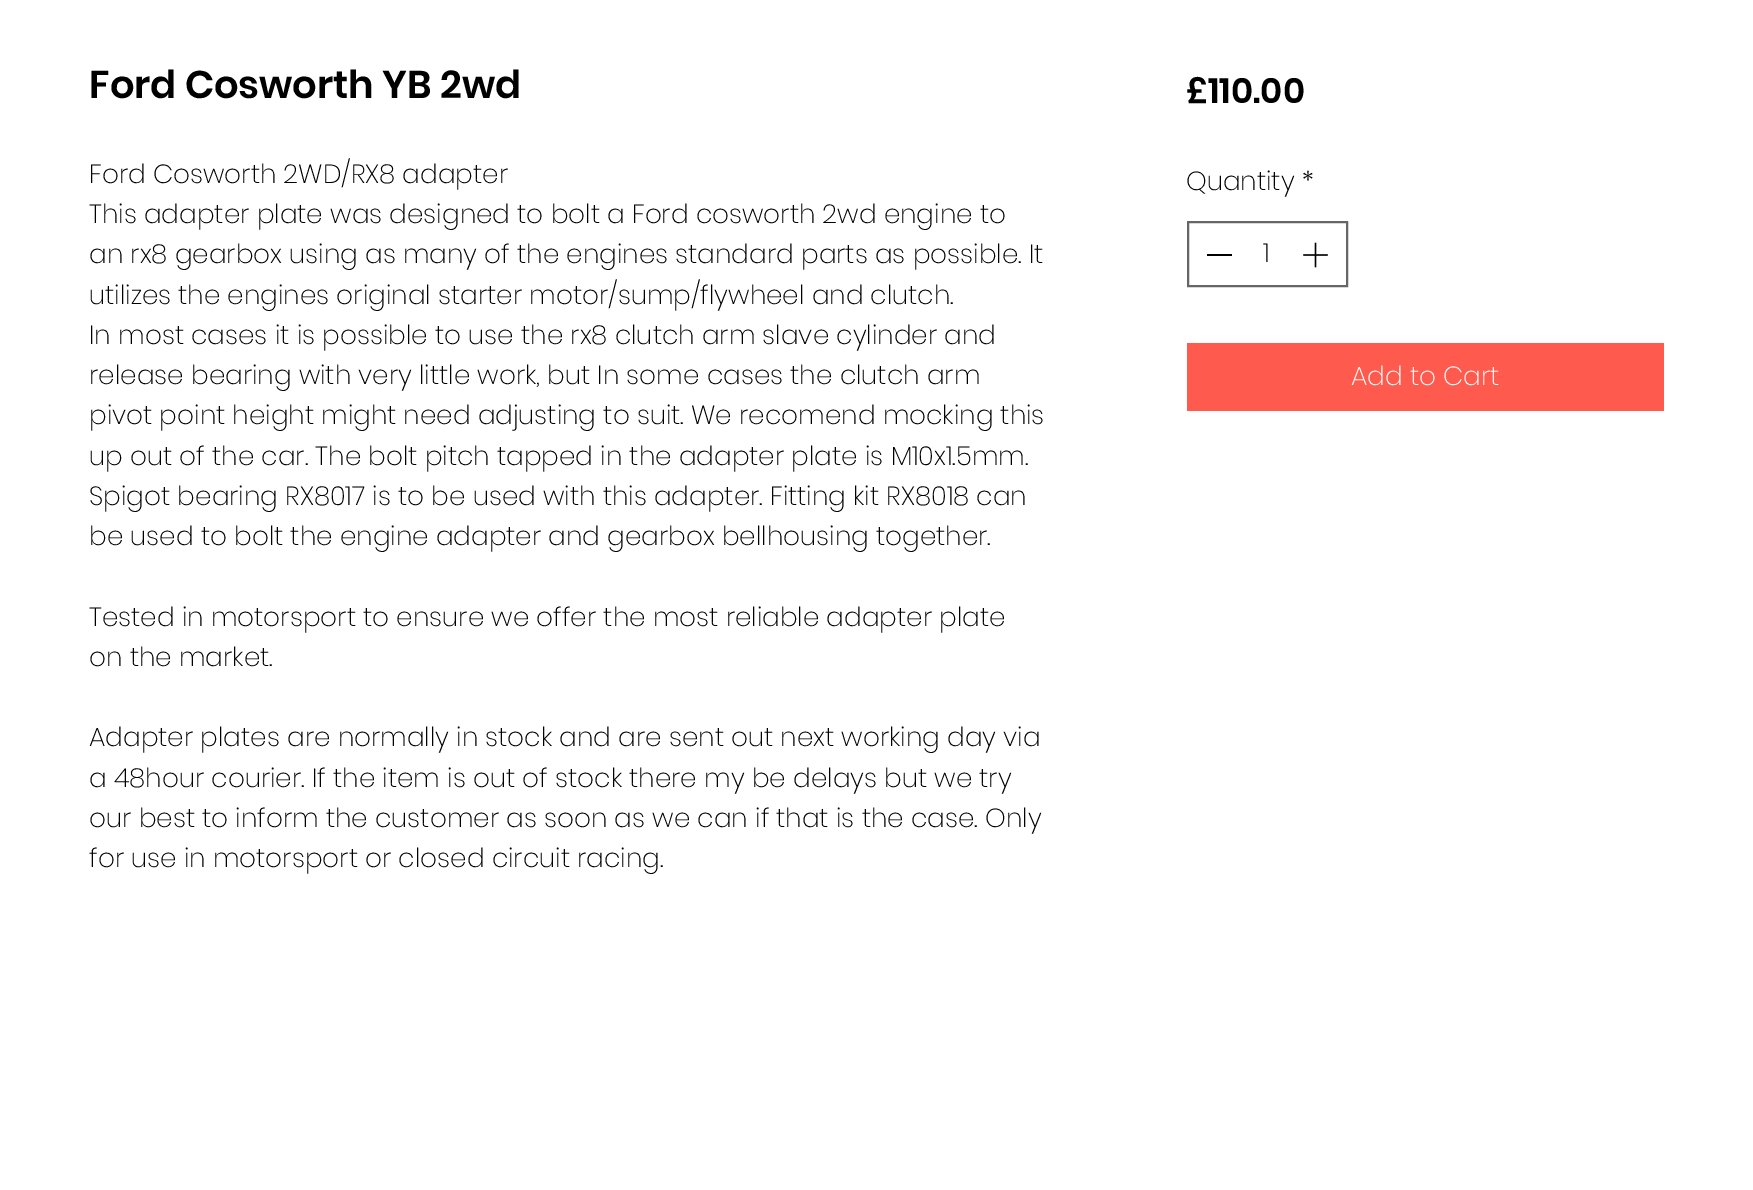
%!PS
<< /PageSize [1753 1190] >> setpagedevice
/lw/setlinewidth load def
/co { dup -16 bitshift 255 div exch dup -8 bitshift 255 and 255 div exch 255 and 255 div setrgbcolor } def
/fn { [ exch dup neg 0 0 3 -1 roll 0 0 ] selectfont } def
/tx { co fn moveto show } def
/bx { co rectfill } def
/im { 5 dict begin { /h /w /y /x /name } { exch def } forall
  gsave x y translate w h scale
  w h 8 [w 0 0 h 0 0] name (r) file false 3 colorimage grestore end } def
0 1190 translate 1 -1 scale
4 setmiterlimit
0 0 1753 1190 16#FFFFFF bx
16#666666 co
2 lw
1188 222 159 64 rectstroke
1207 254 25 2 16#000000 bx
(media/1.raw) 1303 242 25 26 im
1187 343 477 68 16#FF5A4E bx
(Ford Cosworth YB 2wd) 89 98 /Poppins-SemiBold 38.5 16#000000 tx
(Ford Cosworth 2WD/RX8 adapter) 89 183 /Poppins-ExtraLight 26.25 16#000000 tx
(This adapter plate was designed to bolt a Ford cosworth 2wd engine to) 89 223 /Poppins-ExtraLight 26.25 16#000000 tx
(an rx8 gearbox using as many of the engines standard parts as possible. It) 89 263 /Poppins-ExtraLight 26.25 16#000000 tx
(utilizes the engines original starter motor/sump/flywheel and clutch.) 89 304 /Poppins-ExtraLight 26.25 16#000000 tx
(In most cases it is possible to use the rx8 clutch arm slave cylinder and) 89 344 /Poppins-ExtraLight 26.25 16#000000 tx
(release bearing with very little work, but In some cases the clutch arm) 89 384 /Poppins-ExtraLight 26.25 16#000000 tx
(pivot point height might need adjusting to suit. We recomend mocking this) 89 424 /Poppins-ExtraLight 26.25 16#000000 tx
(up out of the car. The bolt pitch tapped in the adapter plate is M10x1.5mm.) 89 465 /Poppins-ExtraLight 26.25 16#000000 tx
(Spigot bearing RX8017 is to be used with this adapter. Fitting kit RX8018 can) 89 505 /Poppins-ExtraLight 26.25 16#000000 tx
(be used to bolt the engine adapter and gearbox bellhousing together.) 89 545 /Poppins-ExtraLight 26.25 16#000000 tx
(Tested in motorsport to ensure we offer the most reliable adapter plate) 89 626 /Poppins-ExtraLight 26.25 16#000000 tx
(on the market.) 89 666 /Poppins-ExtraLight 26.25 16#000000 tx
(Adapter plates are normally in stock and are sent out next working day via) 89 746 /Poppins-ExtraLight 26.25 16#000000 tx
(a 48hour courier. If the item is out of stock there my be delays but we try) 89 787 /Poppins-ExtraLight 26.25 16#000000 tx
(our best to inform the customer as soon as we can if that is the case. Only) 89 827 /Poppins-ExtraLight 26.25 16#000000 tx
(for use in motorsport or closed circuit racing.) 89 867 /Poppins-ExtraLight 26.25 16#000000 tx
(£110.00) 1186 103 /Poppins-SemiBold 35 16#000000 tx
(Quantity *) 1186 190 /Poppins-ExtraLight 26.25 16#000000 tx
(1) 1263 262 /Poppins-ExtraLight 26.25 16#000000 tx
(Add to Cart) 1351 385 /Poppins-ExtraLight 26.25 16#FFFFFF tx
showpage
